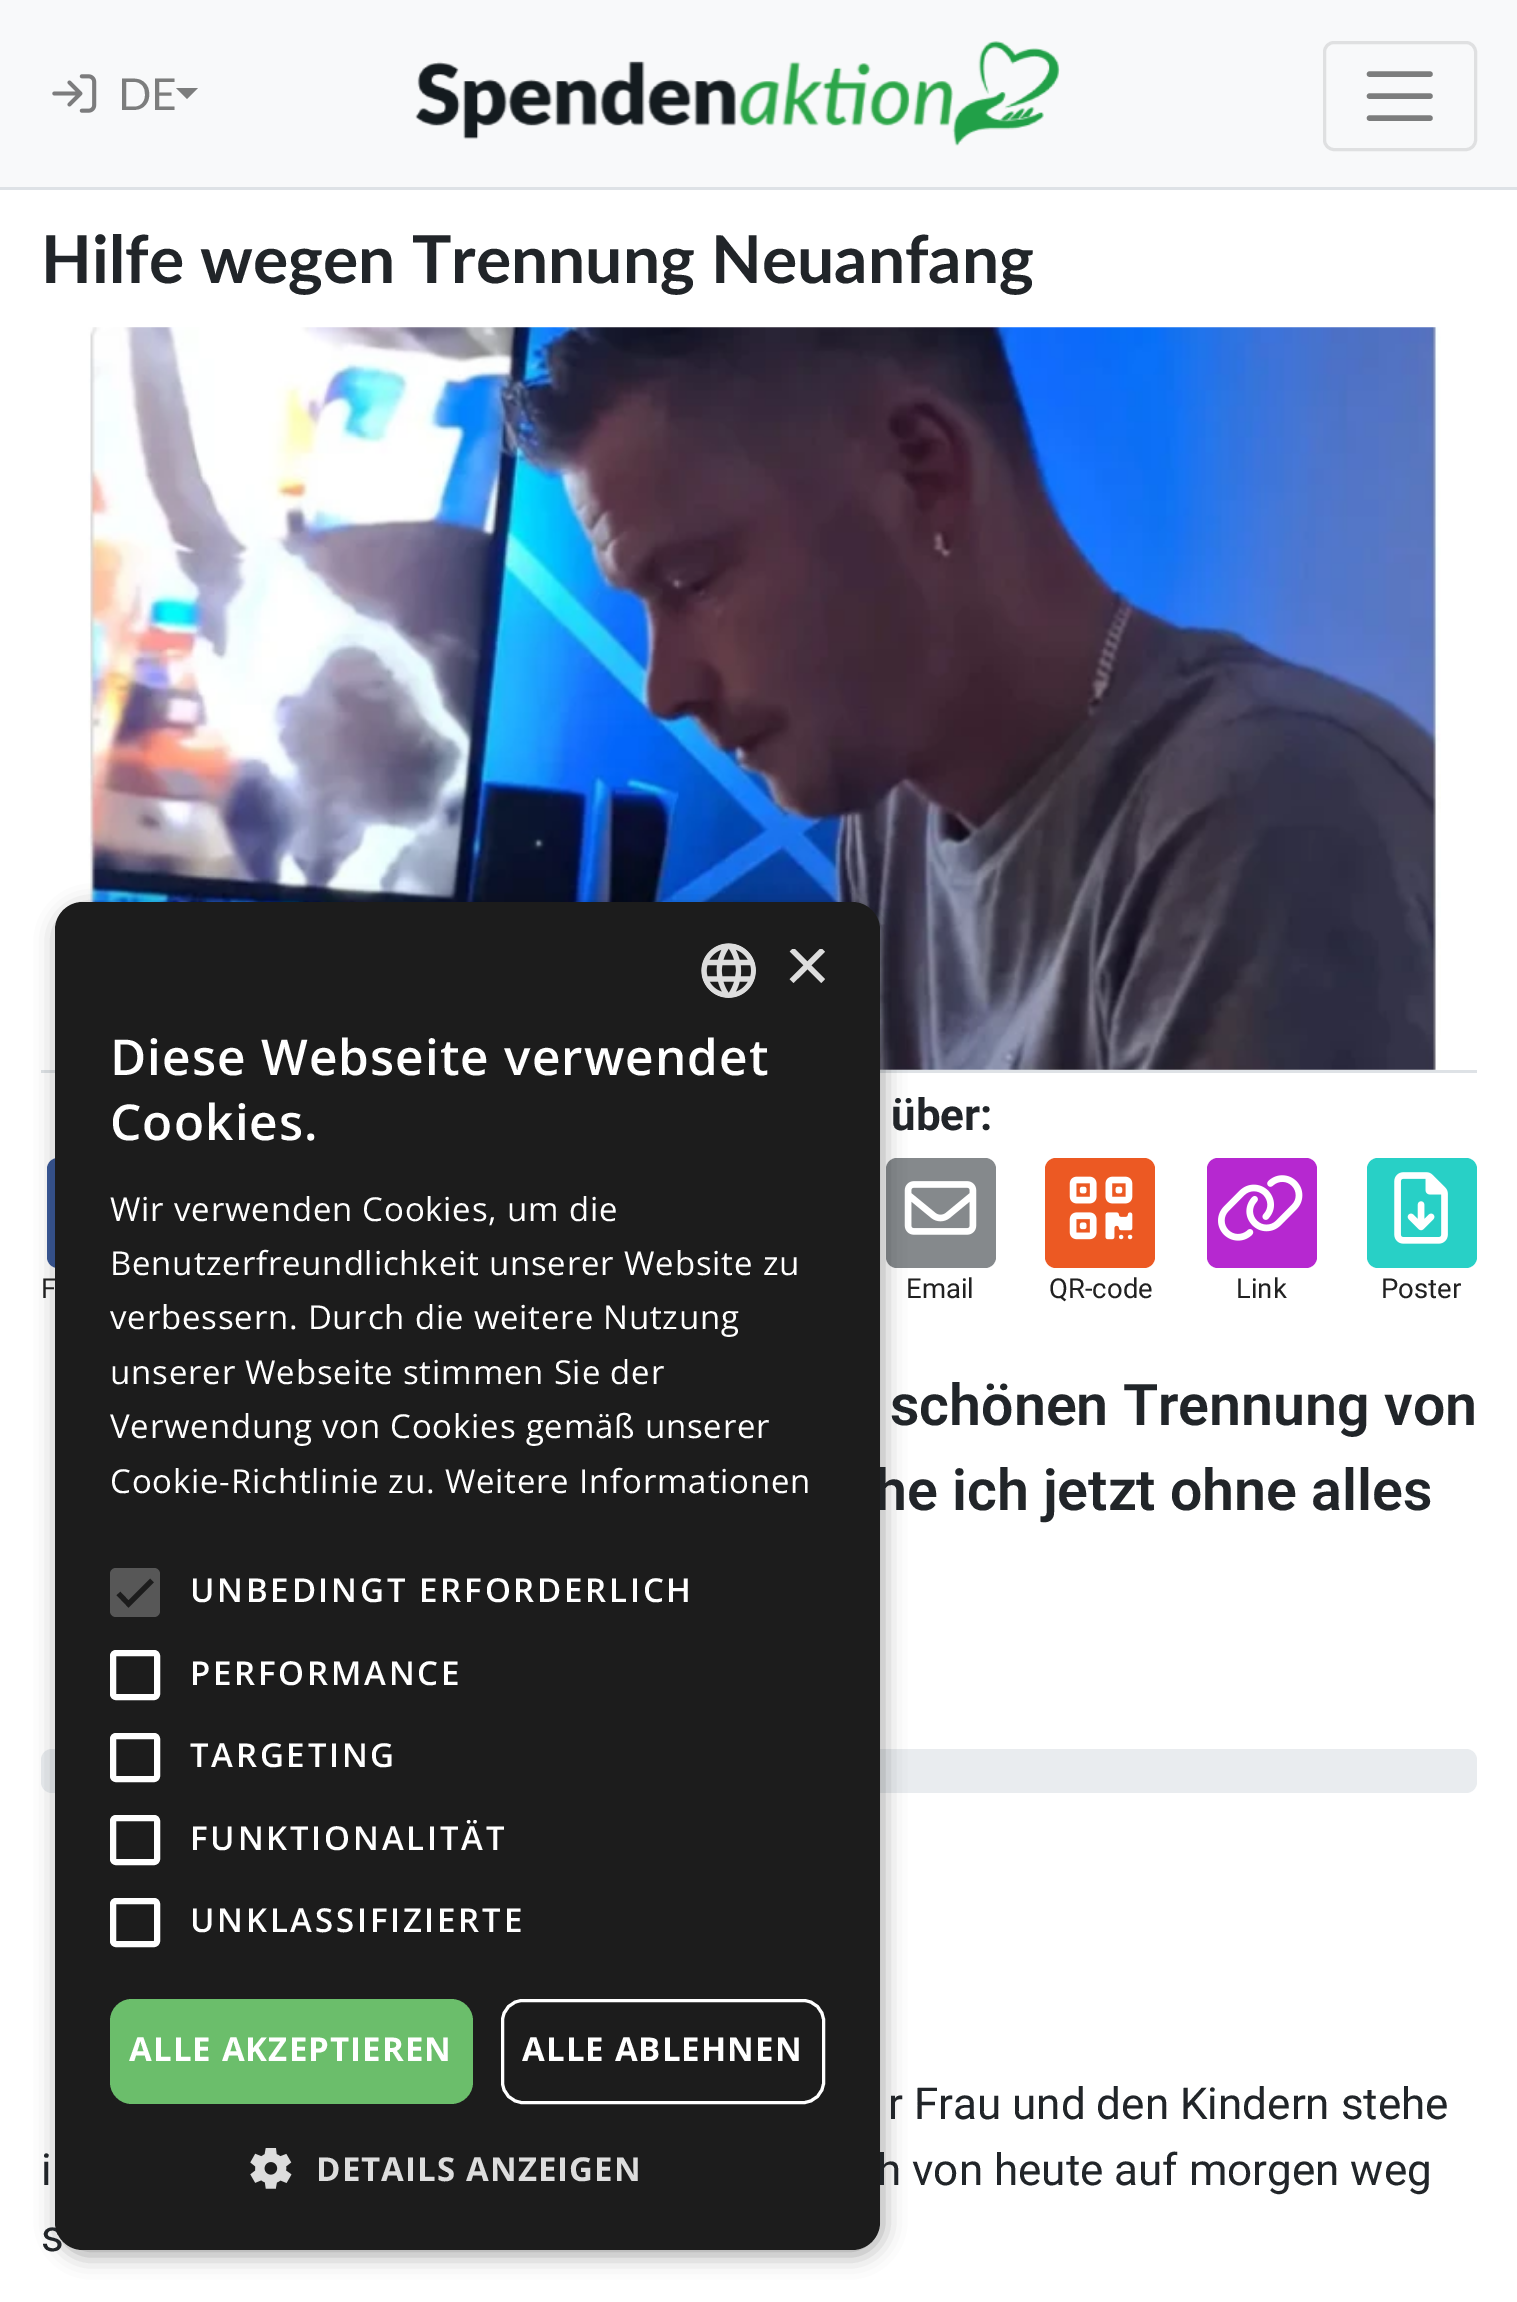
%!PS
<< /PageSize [1517 2302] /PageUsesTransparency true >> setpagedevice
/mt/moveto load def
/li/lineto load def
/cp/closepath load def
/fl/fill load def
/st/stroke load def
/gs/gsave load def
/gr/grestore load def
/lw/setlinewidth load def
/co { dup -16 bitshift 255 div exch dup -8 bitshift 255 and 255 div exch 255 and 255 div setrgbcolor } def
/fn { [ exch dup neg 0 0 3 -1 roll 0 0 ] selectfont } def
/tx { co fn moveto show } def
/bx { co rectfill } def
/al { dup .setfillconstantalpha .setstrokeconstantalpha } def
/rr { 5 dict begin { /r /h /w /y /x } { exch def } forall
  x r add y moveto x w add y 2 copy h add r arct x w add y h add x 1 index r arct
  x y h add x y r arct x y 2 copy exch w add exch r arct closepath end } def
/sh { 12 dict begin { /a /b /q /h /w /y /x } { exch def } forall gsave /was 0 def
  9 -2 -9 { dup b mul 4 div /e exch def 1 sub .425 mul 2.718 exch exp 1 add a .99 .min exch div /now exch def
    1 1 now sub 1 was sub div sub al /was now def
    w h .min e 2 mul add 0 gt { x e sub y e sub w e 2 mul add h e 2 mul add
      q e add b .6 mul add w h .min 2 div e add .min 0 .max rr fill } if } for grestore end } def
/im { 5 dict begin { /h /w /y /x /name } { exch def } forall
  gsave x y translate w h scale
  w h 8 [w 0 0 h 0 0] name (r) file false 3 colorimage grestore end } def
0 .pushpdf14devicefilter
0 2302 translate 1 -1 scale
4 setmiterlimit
0 0 1517 2302 16#FFFFFF bx
0 0 1517 187 16#F8F9FA bx
0 187 1517 3 16#DEE2E6 bx
(media/1.raw) 52 74 45 39 im
16#7C7D7D co
176 88 mt 198 88 li 187 99 li cp fl
(media/2.raw) 415 41 645 105 im
16#DFE0E1 co
3 lw
1324.5 42.5 151 107 9.5 rr st
16#7C7D7D co
5.5 lw
1 setlinecap
1369.5 74 mt 1430 74 li 1369.5 96 mt 1430 96 li 1369.5 118 mt 1430 118 li st
41 1070 1436 3 16#DEE2E6 bx
(media/3.raw) 88 327 1353 743 im
16#3B5998 co
47 1158 110 110 11 rr fl
16#85898C co
886 1158 110 110 11 rr fl
(media/4.raw) 904 1181 73 54 im
16#EC5923 co
1045 1158 110 110 11 rr fl
(media/5.raw) 1069 1176 64 64 im
16#B628D0 co
1207 1158 110 110 11 rr fl
(media/6.raw) 1218 1175 85 66 im
16#28D0C6 co
1367 1158 110 110 11 rr fl
(media/7.raw) 1394 1172 54 72 im
16#E9ECEF co
41 1749 1436 44 11 rr fl
16#000000 co
58 908 825 1347 28 11 .35 sh
(DE) 118 110 /Lato-Regular 44 16#7C7D7D tx
(Hilfe wegen Trennung Neuanfang) 41 283 /Lato-Bold 66 16#212529 tx
(über:) 891 1130 /Roboto-Bold 44 16#212529 tx
(F) 41 1298 /Roboto-Regular 27.5 16#212121 tx
(Email) 906 1298 /Roboto-Regular 27.5 16#212121 tx
(QR-code) 1049 1298 /Roboto-Regular 27.5 16#212121 tx
(Link) 1236 1298 /Roboto-Regular 27.5 16#212121 tx
(Poster) 1381 1298 /Roboto-Regular 27.5 16#212121 tx
(schönen Trennung von) 890 1425 /Roboto-SemiBold 57.25 16#212529 tx
(he ich jetzt ohne alles) 875 1510 /Roboto-SemiBold 57.25 16#212529 tx
(r Frau und den Kindern stehe) 888 2119 /Roboto-Regular 44 16#212529 tx
(i) 41 2185 /Roboto-Regular 44 16#212529 tx
(h von heute auf morgen weg) 877 2185 /Roboto-Regular 44 16#212529 tx
(s) 41 2251 /Roboto-Regular 44 16#212529 tx
16#1C1C1C co
55 902 825 1348 28 rr fl
(media/8.raw) 701 943 55 55 im
gs
784 949 41 41 rectclip
(×) 784 992 /LiberationSans-Regular 80 16#DDDDDD tx
gr
/OpenSans-SemiBold 49.5 fn
16#FFFFFF co
110 1075 mt 1.1 0 (Diese Webseite verwendet) ashow
110 1140 mt 1.1 0 (Cookies.) ashow
/OpenSans-Regular 33 fn
110 1221 mt .8 0 (Wir verwenden Cookies, um die) ashow
110 1275 mt .8 0 (Benutzerfreundlichkeit unserer Website zu) ashow
110 1329 mt .8 0 (verbessern. Durch die weitere Nutzung) ashow
110 1384 mt .8 0 (unserer Webseite stimmen Sie der) ashow
110 1438 mt .8 0 (Verwendung von Cookies gemäß unserer) ashow
110 1493 mt .8 0 (Cookie-Richtlinie zu. Weitere Informationen) ashow
16#575757 co
110 1568 50 49 6 rr fl
16#1C1C1C co
5 lw
0 setlinecap
118.5 1593.5 mt 128.5 1604 li 152 1580.5 li st
/OpenSans-SemiBold 33 fn
16#FFFFFF co
190 1602 mt 2.75 0 (UNBEDINGT ERFORDERLICH) ashow
6 lw
113 1653 44 44 3 rr st
190 1685 mt 2.75 0 (PERFORMANCE) ashow
113 1736 44 43 3 rr st
190 1767 mt 2.75 0 (TARGETING) ashow
113 1818 44 44 3 rr st
190 1850 mt 2.75 0 (FUNKTIONALITÄT) ashow
113 1901 44 43 3 rr st
190 1932 mt 2.75 0 (UNKLASSIFIZIERTE) ashow
16#6BBE6B co
110 1999 363 105 22 rr fl
/OpenSans-Bold 33 fn
16#FFFFFF co
129 2061 mt 1.1 0 (ALLE AKZEPTIEREN) ashow
3 lw
502.5 2000.5 321 102 20.5 rr st
522 2061 mt 1.1 0 (ALLE ABLEHNEN) ashow
(media/9.raw) 250 2148 42 41 im
16#DDDDDD co
316 2181 mt 1.1 0 (DETAILS ANZEIGEN) ashow
.poppdf14devicefilter showpage
